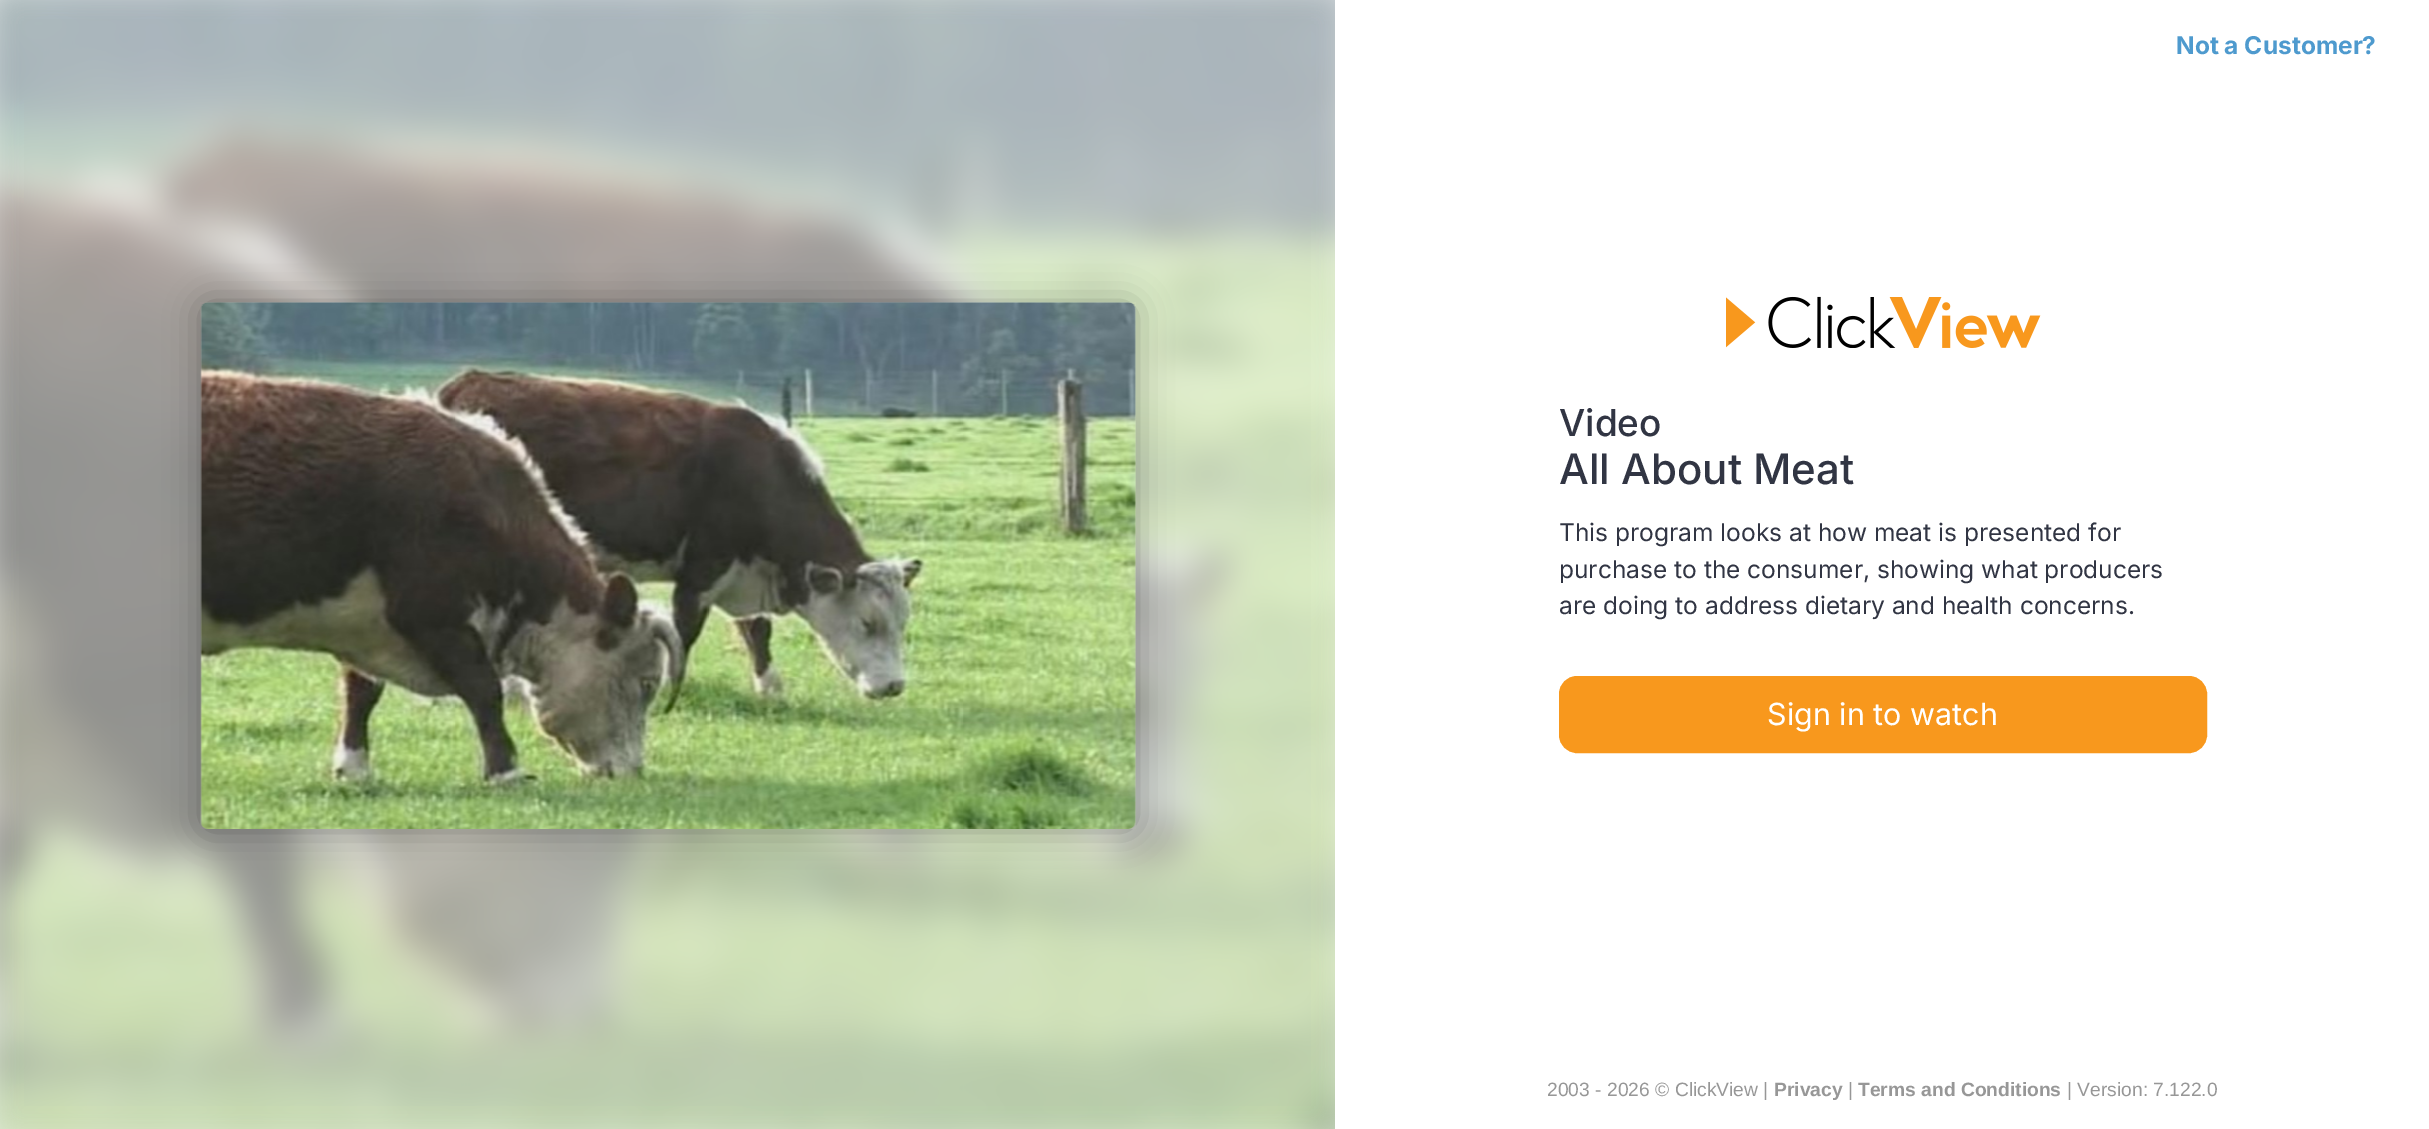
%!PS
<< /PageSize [2429 1129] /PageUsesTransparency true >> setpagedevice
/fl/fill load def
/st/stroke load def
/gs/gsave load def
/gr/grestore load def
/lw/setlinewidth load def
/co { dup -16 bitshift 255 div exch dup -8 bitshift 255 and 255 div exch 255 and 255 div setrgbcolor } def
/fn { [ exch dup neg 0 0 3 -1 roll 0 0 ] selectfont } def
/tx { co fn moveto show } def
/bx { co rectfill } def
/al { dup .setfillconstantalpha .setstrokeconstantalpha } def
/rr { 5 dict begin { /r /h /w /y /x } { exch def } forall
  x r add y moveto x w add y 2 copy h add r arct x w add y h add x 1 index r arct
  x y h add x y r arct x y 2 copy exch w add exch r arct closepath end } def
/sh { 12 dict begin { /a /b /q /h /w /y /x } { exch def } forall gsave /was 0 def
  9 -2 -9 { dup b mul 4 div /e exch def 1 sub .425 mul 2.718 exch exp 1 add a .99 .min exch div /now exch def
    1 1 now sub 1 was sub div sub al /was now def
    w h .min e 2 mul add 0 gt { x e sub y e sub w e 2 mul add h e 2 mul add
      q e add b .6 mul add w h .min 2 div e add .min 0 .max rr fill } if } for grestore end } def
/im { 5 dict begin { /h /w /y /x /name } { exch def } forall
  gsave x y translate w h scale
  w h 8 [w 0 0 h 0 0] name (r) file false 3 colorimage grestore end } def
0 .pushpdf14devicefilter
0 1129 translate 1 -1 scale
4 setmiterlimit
0 0 2429 1129 16#FAFAFA bx
(media/1.raw) 0 0 1335 1129 im
16#000000 co
201 303 935 527 7 17.5 .3 sh
(media/2.raw) 200 302 936 527 im
1335 0 1094 1129 16#FFFFFF bx
(media/3.raw) 1726 296 315 52 im
16#F8981D co
1560 677 646 75 17 rr gs fl gr
2 lw
st
(Not a Customer?) 2176 54 /Inter-Bold 24.5 16#4E9ACE tx
(Video) 1559 436 /Inter-Medium 37 16#313543 tx
(All About Meat) 1559 484 /Inter-Medium 42 16#313543 tx
(This program looks at how meat is presented for) 1559 541 /Inter-Regular 24.5 16#313543 tx
(purchase to the consumer, showing what producers) 1559 578 /Inter-Regular 24.5 16#313543 tx
(are doing to address dietary and health concerns.) 1559 614 /Inter-Regular 24.5 16#313543 tx
(Sign in to watch) 1767 725 /Inter-Regular 30.5 16#FFFFFF tx
(2003 - 2026 © ClickView |) 1547 1096 /LiberationSans-Regular 19.25 16#979797 tx
(Privacy) 1774 1096 /LiberationSans-Bold 19.25 16#979797 tx
(|) 1848 1096 /LiberationSans-Regular 19.25 16#979797 tx
(Terms and Conditions) 1858 1096 /LiberationSans-Bold 19.25 16#979797 tx
(| Version: 7.122.0) 2067 1096 /LiberationSans-Regular 19.25 16#979797 tx
.poppdf14devicefilter showpage
